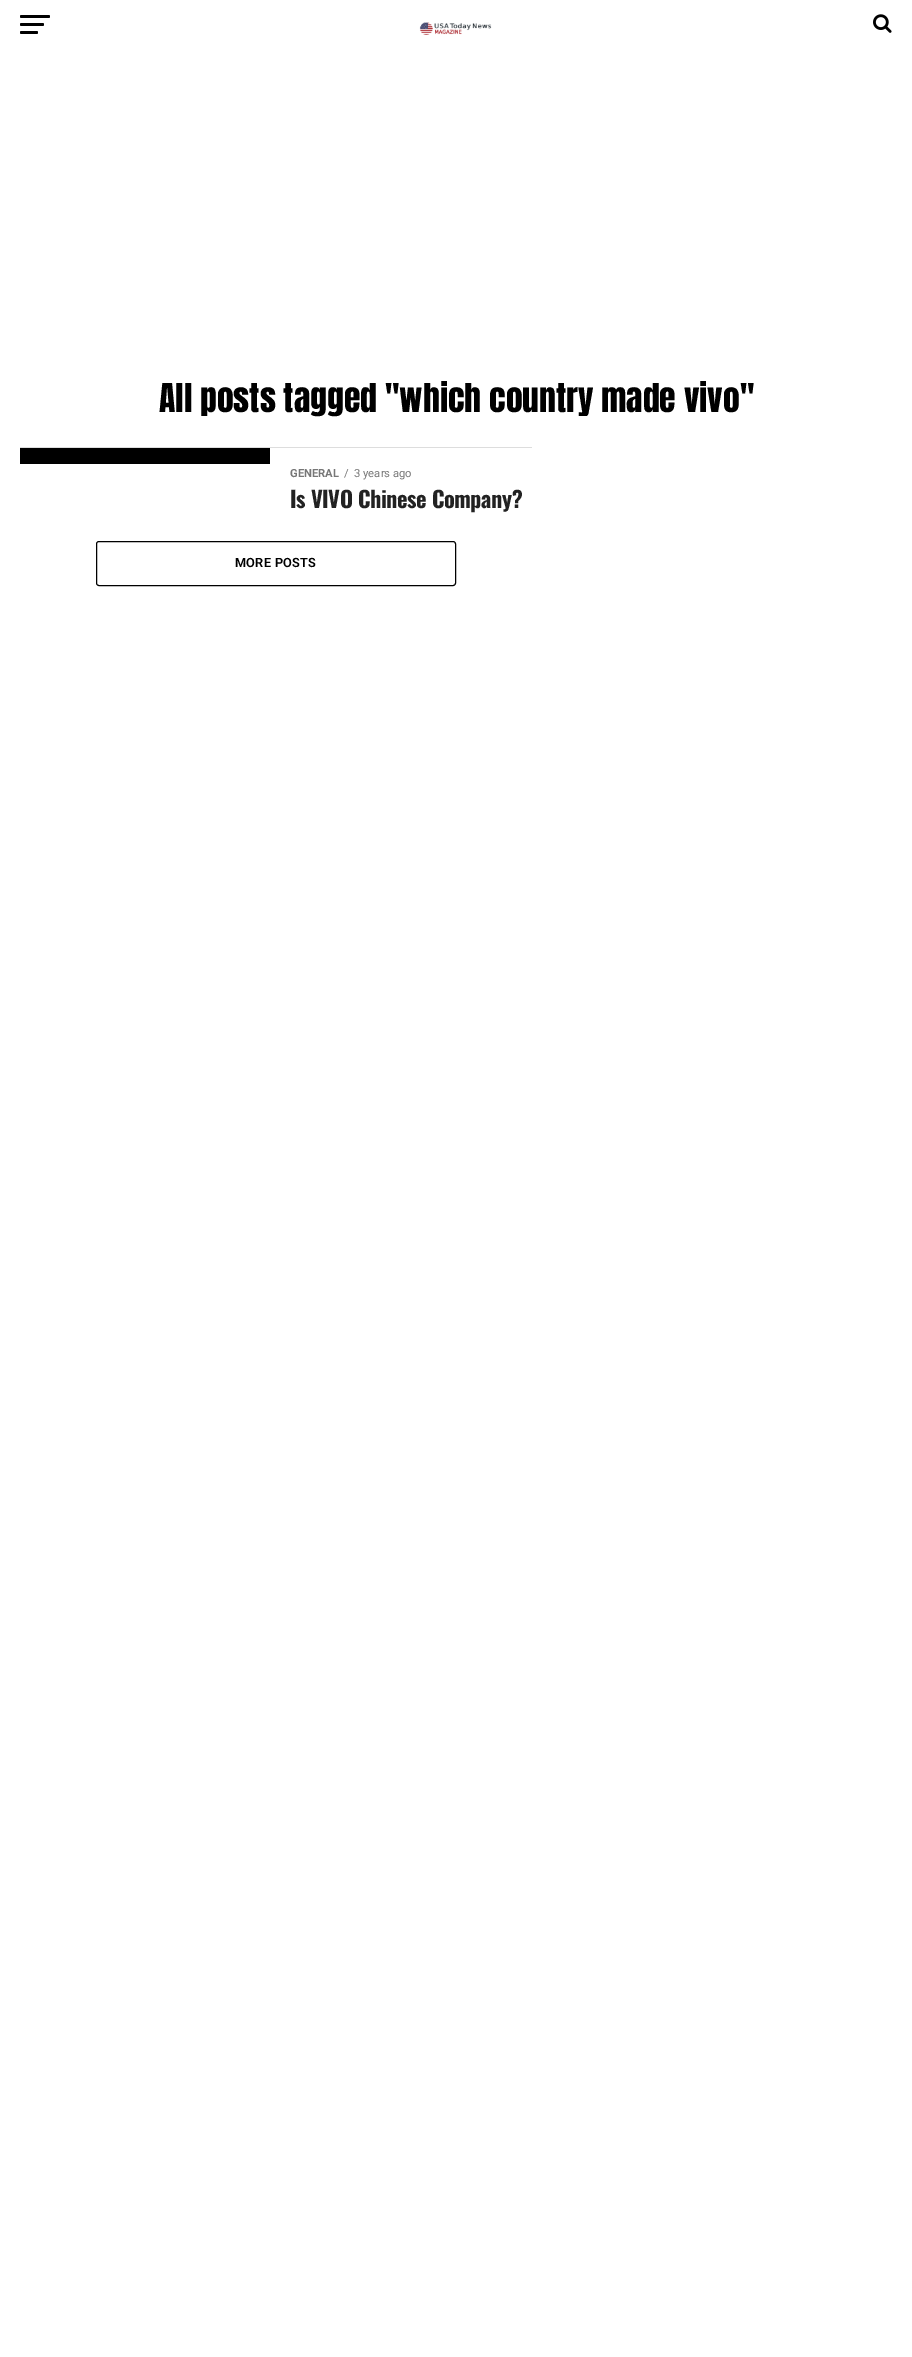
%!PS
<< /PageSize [912 2357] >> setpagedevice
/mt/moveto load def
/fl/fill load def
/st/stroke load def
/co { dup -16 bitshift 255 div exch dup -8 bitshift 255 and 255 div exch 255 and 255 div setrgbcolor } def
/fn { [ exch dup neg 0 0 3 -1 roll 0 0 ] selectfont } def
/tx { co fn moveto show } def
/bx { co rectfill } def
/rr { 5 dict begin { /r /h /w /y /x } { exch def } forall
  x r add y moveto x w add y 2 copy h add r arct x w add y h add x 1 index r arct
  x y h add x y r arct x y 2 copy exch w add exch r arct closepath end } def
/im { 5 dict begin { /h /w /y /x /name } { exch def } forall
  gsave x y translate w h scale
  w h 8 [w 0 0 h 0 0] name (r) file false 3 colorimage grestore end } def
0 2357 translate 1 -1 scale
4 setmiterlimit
0 0 912 2357 16#FFFFFF bx
16#000000 co
20 15 30 3 1.5 rr fl
20 23 24 3 1.5 rr fl
20 31 18 3 1.5 rr fl
(media/1.raw) 419 22 73 13 im
(media/2.raw) 873 14 19 19 im
20 447 512 1 16#DDDDDD bx
20 448 250 16 16#000000 bx
96.5 541.5 359 44 2.5 rr st
(All posts tagged "which country made vivo") 159 412 /Anton-Regular 33.6 16#000000 tx
(GENERAL) 290 477 /Roboto-Bold 11.25 16#777777 tx
(/) 344 477 /Roboto-Regular 11.25 16#777777 tx
(3 years ago) 354 477 /Roboto-Regular 11.25 16#777777 tx
/Oswald-Bold 22.4 fn
16#222222 co
290 508 mt -.45 0 (Is VIVO Chinese Company?) ashow
/Roboto-SemiBold 12.75 fn
16#000000 co
235 567 mt .25 0 (MORE POSTS) ashow
showpage
